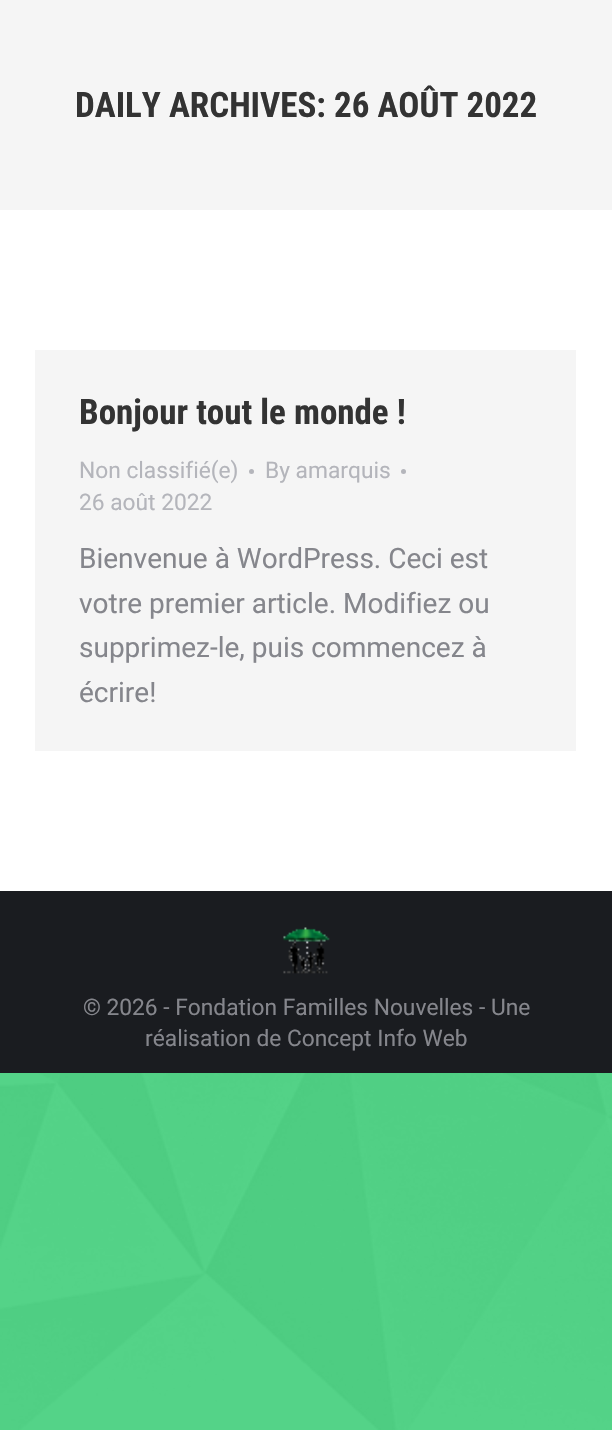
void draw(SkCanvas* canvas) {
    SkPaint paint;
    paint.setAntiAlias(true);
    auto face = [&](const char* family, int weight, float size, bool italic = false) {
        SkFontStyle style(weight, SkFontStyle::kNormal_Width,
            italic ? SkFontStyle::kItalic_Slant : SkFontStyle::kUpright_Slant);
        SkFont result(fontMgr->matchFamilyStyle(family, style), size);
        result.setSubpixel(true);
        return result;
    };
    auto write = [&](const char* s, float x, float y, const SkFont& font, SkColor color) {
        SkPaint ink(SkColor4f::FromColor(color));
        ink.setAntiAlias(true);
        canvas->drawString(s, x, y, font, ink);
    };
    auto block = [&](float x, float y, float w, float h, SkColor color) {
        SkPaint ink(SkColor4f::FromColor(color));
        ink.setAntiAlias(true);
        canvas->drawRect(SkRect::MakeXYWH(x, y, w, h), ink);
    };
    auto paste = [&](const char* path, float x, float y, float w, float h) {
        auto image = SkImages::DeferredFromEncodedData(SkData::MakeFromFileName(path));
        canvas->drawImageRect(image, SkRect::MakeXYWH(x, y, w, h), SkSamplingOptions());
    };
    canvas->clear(SkColorSetRGB(59, 205, 119));
    paste("pic1.png", 0, 1073, 612, 357);
    block(0, 210, 612, 681, SK_ColorWHITE);
    block(0, 0, 612, 210, SkColorSetRGB(245, 245, 245));
    auto kFont1 = face("Roboto Condensed", 700, 35);
    write("DAILY ARCHIVES: 26 AOÛT 2022", 75, 117, kFont1, SkColorSetRGB(51, 51, 51));
    block(35, 350, 541, 401, SkColorSetRGB(245, 245, 245));
    write("Bonjour tout le monde !", 79, 424, kFont1, SkColorSetRGB(51, 51, 51));
    auto kFont2 = face("Roboto", 400, 22.75f);
    write("Non classifié(e)", 79, 478, kFont2, SkColorSetRGB(180, 181, 187));
    paint.setColor(SkColorSetRGB(180, 181, 187));
    canvas->drawCircle(251.5f, 471.5f, 2.5f, paint);
    write("By amarquis", 265, 478, kFont2, SkColorSetRGB(180, 181, 187));
    canvas->drawCircle(403.5f, 471.5f, 2.5f, paint);
    write("26 août 2022", 79, 510, kFont2, SkColorSetRGB(180, 181, 187));
    auto kFont3 = face("Roboto", 400, 28);
    write("Bienvenue à WordPress. Ceci est", 79, 568, kFont3, SkColorSetRGB(133, 134, 140));
    write("votre premier article. Modifiez ou", 79, 613, kFont3, SkColorSetRGB(133, 134, 140));
    write("supprimez-le, puis commencez à", 79, 657, kFont3, SkColorSetRGB(133, 134, 140));
    write("écrire!", 79, 702, kFont3, SkColorSetRGB(133, 134, 140));
    block(0, 891, 612, 182, SkColorSetRGB(26, 28, 32));
    paste("pic2.png", 283, 927, 47, 47);
    write("© 2026 - Fondation Familles Nouvelles - Une", 83, 1015, kFont2, SkColorSetRGB(133, 134, 140));
    write("réalisation de Concept Info Web", 145, 1046, kFont2, SkColorSetRGB(133, 134, 140));
}
